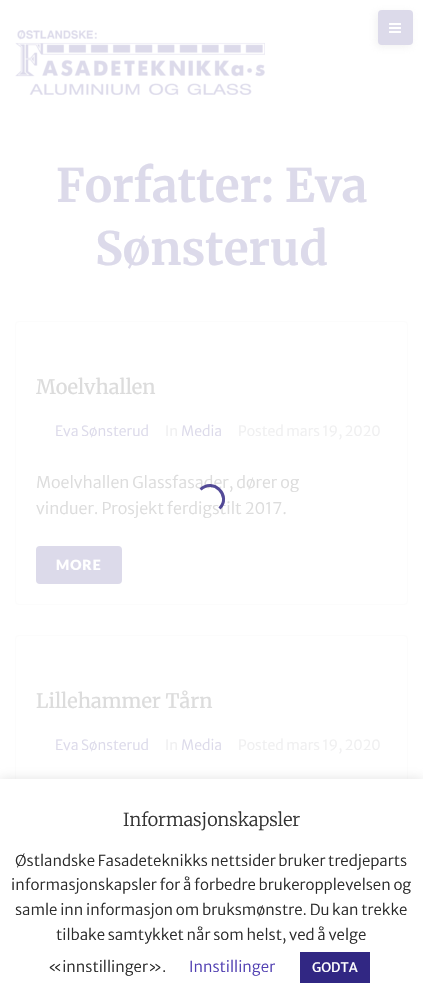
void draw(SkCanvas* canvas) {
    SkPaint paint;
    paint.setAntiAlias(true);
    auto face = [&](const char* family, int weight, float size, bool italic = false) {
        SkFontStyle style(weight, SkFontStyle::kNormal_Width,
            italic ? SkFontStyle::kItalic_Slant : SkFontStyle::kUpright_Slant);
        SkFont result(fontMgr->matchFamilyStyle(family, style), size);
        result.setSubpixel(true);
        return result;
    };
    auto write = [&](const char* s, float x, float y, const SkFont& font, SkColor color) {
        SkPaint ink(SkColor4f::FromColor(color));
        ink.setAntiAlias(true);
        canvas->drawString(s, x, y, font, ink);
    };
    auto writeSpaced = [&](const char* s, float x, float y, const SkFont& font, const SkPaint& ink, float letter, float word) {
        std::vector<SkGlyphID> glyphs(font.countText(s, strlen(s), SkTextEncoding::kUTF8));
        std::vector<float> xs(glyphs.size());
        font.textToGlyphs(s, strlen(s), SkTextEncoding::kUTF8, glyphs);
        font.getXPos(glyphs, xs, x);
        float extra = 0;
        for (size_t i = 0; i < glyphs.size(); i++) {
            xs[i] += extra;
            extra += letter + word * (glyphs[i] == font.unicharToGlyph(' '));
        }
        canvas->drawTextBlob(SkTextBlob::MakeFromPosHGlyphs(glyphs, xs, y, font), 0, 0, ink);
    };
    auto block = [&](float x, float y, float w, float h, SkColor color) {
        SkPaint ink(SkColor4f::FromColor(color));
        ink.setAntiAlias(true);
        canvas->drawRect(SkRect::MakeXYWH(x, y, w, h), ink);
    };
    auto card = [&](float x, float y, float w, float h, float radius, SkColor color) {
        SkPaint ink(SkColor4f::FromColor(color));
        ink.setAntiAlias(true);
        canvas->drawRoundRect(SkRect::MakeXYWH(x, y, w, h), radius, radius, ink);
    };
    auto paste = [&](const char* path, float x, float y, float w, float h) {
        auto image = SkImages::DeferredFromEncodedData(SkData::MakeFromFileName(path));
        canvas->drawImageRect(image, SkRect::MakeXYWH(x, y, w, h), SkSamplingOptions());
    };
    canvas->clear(SK_ColorWHITE);
    paste("pic1.png", 15, 30, 250, 65);
    paint.setColor(SkColorSetARGB(77, 212, 212, 212));
    paint.setMaskFilter(SkMaskFilter::MakeBlur(kNormal_SkBlurStyle, 3.5f));
    canvas->drawRoundRect(SkRect::MakeXYWH(376, 12, 35, 35), 4, 4, paint);
    paint.setMaskFilter(nullptr);
    card(378, 10, 35, 35, 4, SkColorSetRGB(220, 218, 234));
    paste("pic2.png", 389, 23, 12, 10);
    auto kFont1 = face("Merriweather", 700, 46);
    write("Forfatter: Eva", 56, 202, kFont1, SkColorSetRGB(220, 218, 234));
    write("Sønsterud", 95, 265, kFont1, SkColorSetRGB(220, 218, 234));
    paint.setStyle(SkPaint::kStroke_Style);
    paint.setStrokeWidth(1);
    paint.setColor(SkColorSetRGB(252, 252, 252));
    canvas->drawRoundRect(SkRect::MakeXYWH(15.5f, 321.5f, 392, 283), 3.5f, 3.5f, paint);
    auto kFont2 = face("Merriweather", 400, 20);
    write("Moelvhallen", 36, 394, kFont2, SkColorSetRGB(220, 220, 220));
    auto kFont3 = face("Merriweather Sans", 300, 14);
    write("Eva Sønsterud", 55, 436, kFont3, SkColorSetRGB(220, 218, 234));
    write("In", 165, 436, kFont3, SkColorSetRGB(239, 239, 240));
    write("Media", 181, 436, kFont3, SkColorSetRGB(220, 218, 234));
    write("Posted mars 19, 2020", 238, 436, kFont3, SkColorSetRGB(239, 239, 240));
    auto kFont4 = face("Merriweather Sans", 300, 16);
    write("Moelvhallen Glassfasader, dører og", 36, 488, kFont4, SkColorSetRGB(220, 220, 220));
    write("vinduer. Prosjekt ferdigstilt 2017.", 36, 514, kFont4, SkColorSetRGB(220, 220, 220));
    card(36, 546, 86, 38, 4, SkColorSetRGB(220, 218, 234));
    auto kFont5 = face("Lato", 900, 14);
    paint.setStyle(SkPaint::kFill_Style);
    paint.setColor(SK_ColorWHITE);
    writeSpaced("MORE", 56, 570, kFont5, paint, 1, 0);
    paint.setStyle(SkPaint::kStroke_Style);
    paint.setColor(SkColorSetRGB(252, 252, 252));
    canvas->drawRoundRect(SkRect::MakeXYWH(15.5f, 635.5f, 392, 282), 3.5f, 3.5f, paint);
    write("Lillehammer Tårn", 36, 708, kFont2, SkColorSetRGB(220, 220, 220));
    write("Eva Sønsterud", 55, 750, kFont3, SkColorSetRGB(220, 218, 234));
    write("In", 165, 750, kFont3, SkColorSetRGB(239, 239, 240));
    write("Media", 181, 750, kFont3, SkColorSetRGB(220, 218, 234));
    write("Posted mars 19, 2020", 238, 750, kFont3, SkColorSetRGB(239, 239, 240));
    paint.setStrokeWidth(3);
    paint.setColor(SkColorSetARGB(212, 49, 39, 131));
    canvas->drawPath(SkPathBuilder().moveTo(200.5f, 489.5f).cubicTo(213, 477, 232, 496, 219.5f, 508.5f).detach(), paint);
    paint.setStyle(SkPaint::kFill_Style);
    paint.setColor(SkColorSetARGB(77, 172, 171, 171));
    paint.setMaskFilter(SkMaskFilter::MakeBlur(kNormal_SkBlurStyle, 5));
    canvas->drawRect(SkRect::MakeXYWH(0, 778, 423, 221), paint);
    paint.setMaskFilter(nullptr);
    block(0, 779, 423, 221, SK_ColorWHITE);
    auto kFont6 = face("Merriweather", 300, 18);
    write("Informasjonskapsler", 123, 826, kFont6, SkColorSetRGB(51, 51, 51));
    auto kFont7 = face("Merriweather Sans", 300, 15);
    write("Østlandske Fasadeteknikks nettsider bruker tredjeparts", 15, 866, kFont7, SkColorSetRGB(43, 43, 43));
    write("informasjonskapsler for å forbedre brukeropplevelsen og", 11, 890, kFont7, SkColorSetRGB(43, 43, 43));
    write("samle inn informasjon om bruksmønstre. Du kan trekke", 15, 915, kFont7, SkColorSetRGB(43, 43, 43));
    write("tilbake samtykket når som helst, ved å velge", 56, 940, kFont7, SkColorSetRGB(43, 43, 43));
    write("«innstillinger».", 48, 972, kFont7, SkColorSetRGB(43, 43, 43));
    write("Innstillinger", 189, 972, kFont7, SkColorSetRGB(81, 64, 178));
    block(300, 952, 70, 31, SkColorSetRGB(49, 39, 131));
    auto kFont8 = face("Merriweather Sans", 400, 13);
    write("GODTA", 312, 972, kFont8, SK_ColorWHITE);
}
